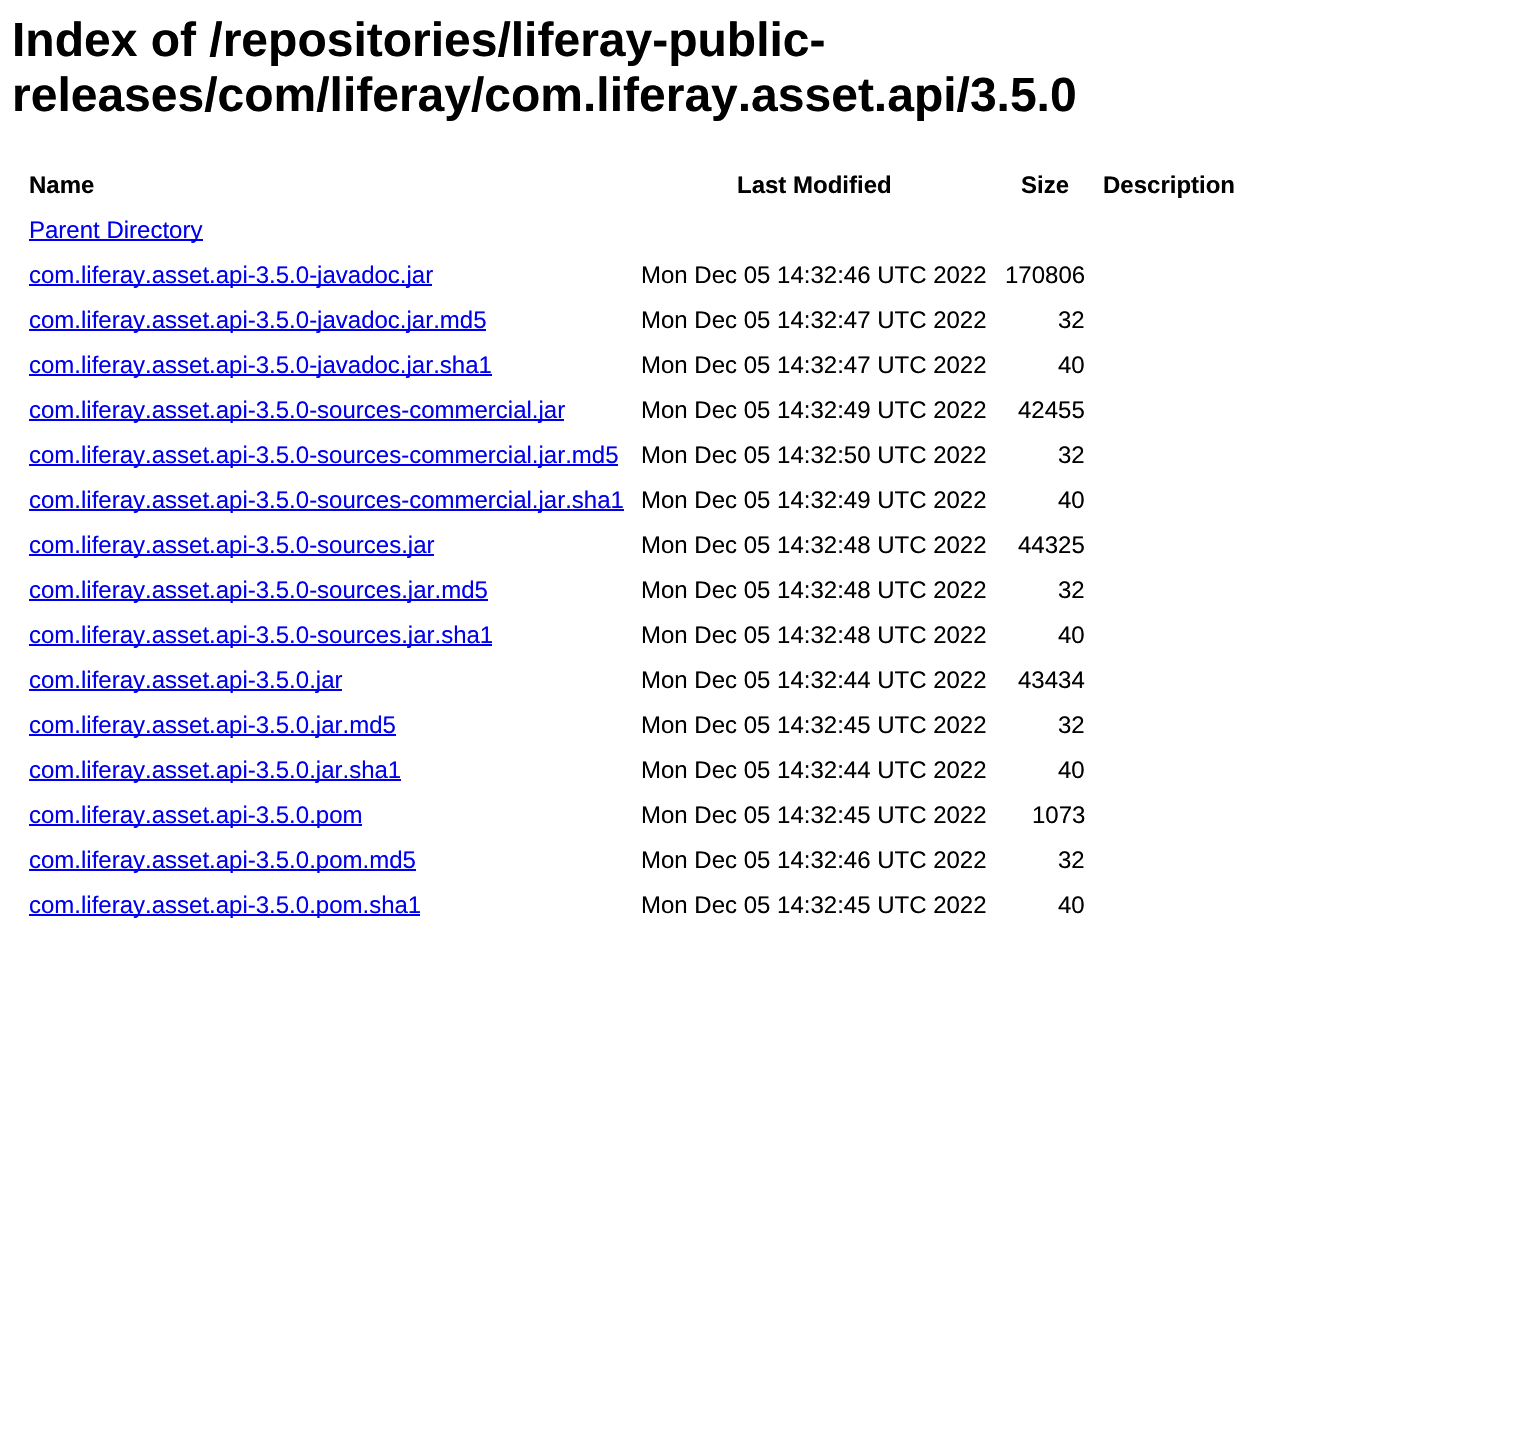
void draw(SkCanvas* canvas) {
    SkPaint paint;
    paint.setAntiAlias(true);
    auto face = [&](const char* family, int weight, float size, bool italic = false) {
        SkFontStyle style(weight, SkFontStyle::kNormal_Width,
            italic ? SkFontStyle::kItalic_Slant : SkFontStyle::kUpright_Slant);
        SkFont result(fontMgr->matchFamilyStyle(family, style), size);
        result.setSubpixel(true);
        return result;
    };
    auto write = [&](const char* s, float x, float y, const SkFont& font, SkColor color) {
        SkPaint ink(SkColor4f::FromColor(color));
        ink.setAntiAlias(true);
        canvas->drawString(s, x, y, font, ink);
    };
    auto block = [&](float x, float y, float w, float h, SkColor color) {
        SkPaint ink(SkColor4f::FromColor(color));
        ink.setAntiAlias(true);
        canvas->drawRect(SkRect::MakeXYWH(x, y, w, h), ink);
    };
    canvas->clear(SK_ColorWHITE);
    auto kFont1 = face("Liberation Sans", 700, 48);
    write("Index of /repositories/liferay-public-", 12, 56, kFont1, SK_ColorBLACK);
    write("releases/com/liferay/com.liferay.asset.api/3.5.0", 12, 111, kFont1, SK_ColorBLACK);
    auto kFont2 = face("Liberation Sans", 700, 24);
    write("Name", 29, 193, kFont2, SK_ColorBLACK);
    write("Last Modified", 737, 193, kFont2, SK_ColorBLACK);
    write("Size", 1021, 193, kFont2, SK_ColorBLACK);
    write("Description", 1103, 193, kFont2, SK_ColorBLACK);
    block(29, 239, 174, 2, SkColorSetRGB(0, 0, 238));
    auto kFont3 = face("Liberation Sans", 400, 24);
    write("Parent Directory", 29, 238, kFont3, SkColorSetRGB(0, 0, 238));
    block(29, 284, 403, 2, SkColorSetRGB(0, 0, 238));
    write("com.liferay.asset.api-3.5.0-javadoc.jar", 29, 283, kFont3, SkColorSetRGB(0, 0, 238));
    write("Mon Dec 05 14:32:46 UTC 2022", 641, 283, kFont3, SK_ColorBLACK);
    write("170806", 1005, 283, kFont3, SK_ColorBLACK);
    block(29, 329, 457, 2, SkColorSetRGB(0, 0, 238));
    write("com.liferay.asset.api-3.5.0-javadoc.jar.md5", 29, 328, kFont3, SkColorSetRGB(0, 0, 238));
    write("Mon Dec 05 14:32:47 UTC 2022", 641, 328, kFont3, SK_ColorBLACK);
    write("32", 1058, 328, kFont3, SK_ColorBLACK);
    block(29, 374, 463, 2, SkColorSetRGB(0, 0, 238));
    write("com.liferay.asset.api-3.5.0-javadoc.jar.sha1", 29, 373, kFont3, SkColorSetRGB(0, 0, 238));
    write("Mon Dec 05 14:32:47 UTC 2022", 641, 373, kFont3, SK_ColorBLACK);
    write("40", 1058, 373, kFont3, SK_ColorBLACK);
    block(29, 419, 535, 2, SkColorSetRGB(0, 0, 238));
    write("com.liferay.asset.api-3.5.0-sources-commercial.jar", 29, 418, kFont3, SkColorSetRGB(0, 0, 238));
    write("Mon Dec 05 14:32:49 UTC 2022", 641, 418, kFont3, SK_ColorBLACK);
    write("42455", 1018, 418, kFont3, SK_ColorBLACK);
    block(29, 464, 589, 2, SkColorSetRGB(0, 0, 238));
    write("com.liferay.asset.api-3.5.0-sources-commercial.jar.md5", 29, 463, kFont3, SkColorSetRGB(0, 0, 238));
    write("Mon Dec 05 14:32:50 UTC 2022", 641, 463, kFont3, SK_ColorBLACK);
    write("32", 1058, 463, kFont3, SK_ColorBLACK);
    block(29, 509, 595, 2, SkColorSetRGB(0, 0, 238));
    write("com.liferay.asset.api-3.5.0-sources-commercial.jar.sha1", 29, 508, kFont3, SkColorSetRGB(0, 0, 238));
    write("Mon Dec 05 14:32:49 UTC 2022", 641, 508, kFont3, SK_ColorBLACK);
    write("40", 1058, 508, kFont3, SK_ColorBLACK);
    block(29, 554, 405, 2, SkColorSetRGB(0, 0, 238));
    write("com.liferay.asset.api-3.5.0-sources.jar", 29, 553, kFont3, SkColorSetRGB(0, 0, 238));
    write("Mon Dec 05 14:32:48 UTC 2022", 641, 553, kFont3, SK_ColorBLACK);
    write("44325", 1018, 553, kFont3, SK_ColorBLACK);
    block(29, 599, 459, 2, SkColorSetRGB(0, 0, 238));
    write("com.liferay.asset.api-3.5.0-sources.jar.md5", 29, 598, kFont3, SkColorSetRGB(0, 0, 238));
    write("Mon Dec 05 14:32:48 UTC 2022", 641, 598, kFont3, SK_ColorBLACK);
    write("32", 1058, 598, kFont3, SK_ColorBLACK);
    block(29, 644, 463, 2, SkColorSetRGB(0, 0, 238));
    write("com.liferay.asset.api-3.5.0-sources.jar.sha1", 29, 643, kFont3, SkColorSetRGB(0, 0, 238));
    write("Mon Dec 05 14:32:48 UTC 2022", 641, 643, kFont3, SK_ColorBLACK);
    write("40", 1058, 643, kFont3, SK_ColorBLACK);
    block(29, 689, 313, 2, SkColorSetRGB(0, 0, 238));
    write("com.liferay.asset.api-3.5.0.jar", 29, 688, kFont3, SkColorSetRGB(0, 0, 238));
    write("Mon Dec 05 14:32:44 UTC 2022", 641, 688, kFont3, SK_ColorBLACK);
    write("43434", 1018, 688, kFont3, SK_ColorBLACK);
    block(29, 734, 367, 2, SkColorSetRGB(0, 0, 238));
    write("com.liferay.asset.api-3.5.0.jar.md5", 29, 733, kFont3, SkColorSetRGB(0, 0, 238));
    write("Mon Dec 05 14:32:45 UTC 2022", 641, 733, kFont3, SK_ColorBLACK);
    write("32", 1058, 733, kFont3, SK_ColorBLACK);
    block(29, 779, 372, 2, SkColorSetRGB(0, 0, 238));
    write("com.liferay.asset.api-3.5.0.jar.sha1", 29, 778, kFont3, SkColorSetRGB(0, 0, 238));
    write("Mon Dec 05 14:32:44 UTC 2022", 641, 778, kFont3, SK_ColorBLACK);
    write("40", 1058, 778, kFont3, SK_ColorBLACK);
    block(29, 824, 333, 2, SkColorSetRGB(0, 0, 238));
    write("com.liferay.asset.api-3.5.0.pom", 29, 823, kFont3, SkColorSetRGB(0, 0, 238));
    write("Mon Dec 05 14:32:45 UTC 2022", 641, 823, kFont3, SK_ColorBLACK);
    write("1073", 1032, 823, kFont3, SK_ColorBLACK);
    block(29, 869, 387, 2, SkColorSetRGB(0, 0, 238));
    write("com.liferay.asset.api-3.5.0.pom.md5", 29, 868, kFont3, SkColorSetRGB(0, 0, 238));
    write("Mon Dec 05 14:32:46 UTC 2022", 641, 868, kFont3, SK_ColorBLACK);
    write("32", 1058, 868, kFont3, SK_ColorBLACK);
    block(29, 914, 391, 2, SkColorSetRGB(0, 0, 238));
    write("com.liferay.asset.api-3.5.0.pom.sha1", 29, 913, kFont3, SkColorSetRGB(0, 0, 238));
    write("Mon Dec 05 14:32:45 UTC 2022", 641, 913, kFont3, SK_ColorBLACK);
    write("40", 1058, 913, kFont3, SK_ColorBLACK);
}
